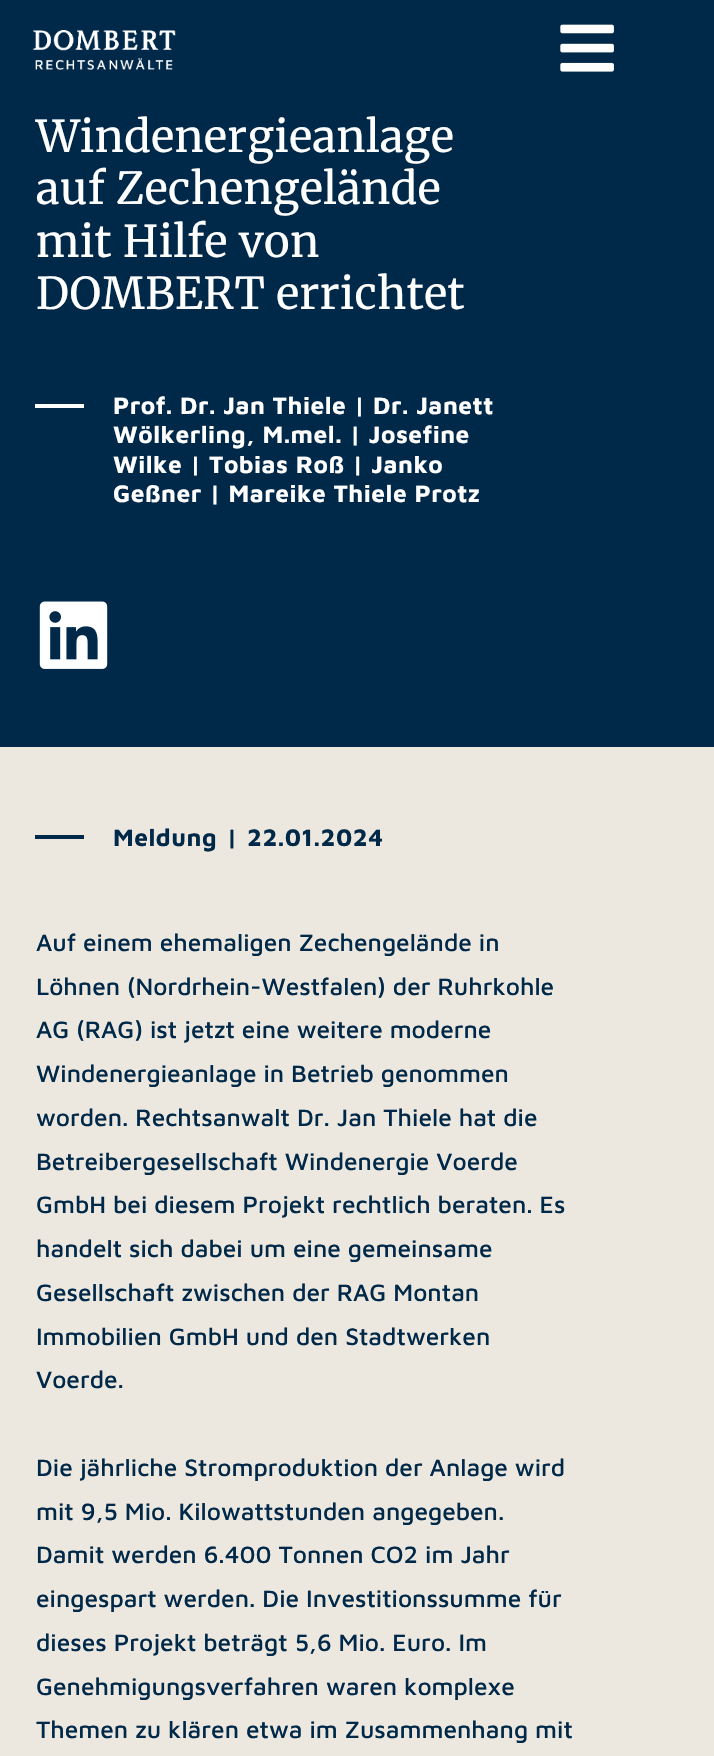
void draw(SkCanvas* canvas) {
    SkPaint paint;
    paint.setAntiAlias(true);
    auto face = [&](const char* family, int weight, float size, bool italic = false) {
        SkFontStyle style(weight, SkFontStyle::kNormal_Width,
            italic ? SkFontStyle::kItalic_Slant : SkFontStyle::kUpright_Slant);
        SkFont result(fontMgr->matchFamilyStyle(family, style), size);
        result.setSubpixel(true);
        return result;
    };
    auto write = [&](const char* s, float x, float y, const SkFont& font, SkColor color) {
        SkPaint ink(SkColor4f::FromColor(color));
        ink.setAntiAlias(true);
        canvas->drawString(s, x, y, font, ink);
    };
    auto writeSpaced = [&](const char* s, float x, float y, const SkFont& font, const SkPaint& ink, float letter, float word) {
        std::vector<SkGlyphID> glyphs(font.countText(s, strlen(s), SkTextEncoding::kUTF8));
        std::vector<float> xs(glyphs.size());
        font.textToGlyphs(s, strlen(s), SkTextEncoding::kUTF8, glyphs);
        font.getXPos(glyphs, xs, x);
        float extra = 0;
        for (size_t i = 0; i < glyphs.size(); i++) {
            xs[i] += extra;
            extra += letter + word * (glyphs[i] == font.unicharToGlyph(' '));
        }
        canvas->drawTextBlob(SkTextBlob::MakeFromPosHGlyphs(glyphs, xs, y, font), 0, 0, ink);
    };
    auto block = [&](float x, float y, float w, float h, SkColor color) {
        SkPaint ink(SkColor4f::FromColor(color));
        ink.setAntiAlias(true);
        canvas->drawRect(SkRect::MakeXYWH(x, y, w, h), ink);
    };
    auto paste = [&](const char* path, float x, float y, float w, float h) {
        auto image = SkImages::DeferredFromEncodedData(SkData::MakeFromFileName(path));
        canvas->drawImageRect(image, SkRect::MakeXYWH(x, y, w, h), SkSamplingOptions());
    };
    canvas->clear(SkColorSetRGB(237, 232, 223));
    block(0, 0, 714, 747, SkColorSetRGB(0, 40, 72));
    paste("pic1.png", 33, 30, 143, 40);
    paste("pic2.png", 560, 24, 54, 48);
    auto kFont1 = face("Merriweather", 400, 43.75f);
    paint.setColor(SK_ColorWHITE);
    writeSpaced("Windenergieanlage", 36, 152, kFont1, paint, 0.5f, 0);
    writeSpaced("auf Zechengelände", 36, 204, kFont1, paint, 0.5f, 0);
    writeSpaced("mit Hilfe von", 36, 257, kFont1, paint, 0.5f, 0);
    writeSpaced("DOMBERT errichtet", 36, 309, kFont1, paint, 0.5f, 0);
    block(35, 404, 49, 4, SK_ColorWHITE);
    auto kFont2 = face("Maven Pro", 700, 24.5f);
    writeSpaced("Prof. Dr. Jan Thiele | Dr. Janett", 113, 414, kFont2, paint, 0.5f, 0);
    writeSpaced("Wölkerling, M.mel. | Josefine", 113, 443, kFont2, paint, 0.5f, 0);
    writeSpaced("Wilke | Tobias Roß | Janko", 113, 473, kFont2, paint, 0.5f, 0);
    writeSpaced("Geßner | Mareike Thiele Protz", 113, 502, kFont2, paint, 0.5f, 0);
    paste("pic3.png", 39, 601, 69, 68);
    block(35, 835, 49, 4, SkColorSetRGB(0, 40, 72));
    paint.setColor(SkColorSetRGB(0, 40, 72));
    writeSpaced("Meldung", 113, 846, kFont2, paint, 0.5f, 0);
    writeSpaced("|", 226, 846, kFont2, paint, 0.5f, 0);
    writeSpaced("22.01.2024", 247, 846, kFont2, paint, 0.5f, 0);
    auto kFont3 = face("Maven Pro", 500, 24.5f);
    write("Auf einem ehemaligen Zechengelände in", 36, 951, kFont3, SkColorSetRGB(0, 40, 72));
    write("Löhnen (Nordrhein-Westfalen) der Ruhrkohle", 36, 995, kFont3, SkColorSetRGB(0, 40, 72));
    write("AG (RAG) ist jetzt eine weitere moderne", 36, 1038, kFont3, SkColorSetRGB(0, 40, 72));
    write("Windenergieanlage in Betrieb genommen", 36, 1082, kFont3, SkColorSetRGB(0, 40, 72));
    write("worden. Rechtsanwalt Dr. Jan Thiele hat die", 36, 1126, kFont3, SkColorSetRGB(0, 40, 72));
    write("Betreibergesellschaft Windenergie Voerde", 36, 1170, kFont3, SkColorSetRGB(0, 40, 72));
    write("GmbH bei diesem Projekt rechtlich beraten. Es", 36, 1213, kFont3, SkColorSetRGB(0, 40, 72));
    write("handelt sich dabei um eine gemeinsame", 36, 1257, kFont3, SkColorSetRGB(0, 40, 72));
    write("Gesellschaft zwischen der RAG Montan", 36, 1301, kFont3, SkColorSetRGB(0, 40, 72));
    write("Immobilien GmbH und den Stadtwerken", 36, 1345, kFont3, SkColorSetRGB(0, 40, 72));
    write("Voerde.", 36, 1388, kFont3, SkColorSetRGB(0, 40, 72));
    write("Die jährliche Stromproduktion der Anlage wird", 36, 1476, kFont3, SkColorSetRGB(0, 40, 72));
    write("mit 9,5 Mio. Kilowattstunden angegeben.", 36, 1520, kFont3, SkColorSetRGB(0, 40, 72));
    write("Damit werden 6.400 Tonnen CO2 im Jahr", 36, 1563, kFont3, SkColorSetRGB(0, 40, 72));
    write("eingespart werden. Die Investitionssumme für", 36, 1607, kFont3, SkColorSetRGB(0, 40, 72));
    write("dieses Projekt beträgt 5,6 Mio. Euro. Im", 36, 1651, kFont3, SkColorSetRGB(0, 40, 72));
    write("Genehmigungsverfahren waren komplexe", 36, 1695, kFont3, SkColorSetRGB(0, 40, 72));
    write("Themen zu klären etwa im Zusammenhang mit", 36, 1738, kFont3, SkColorSetRGB(0, 40, 72));
}
